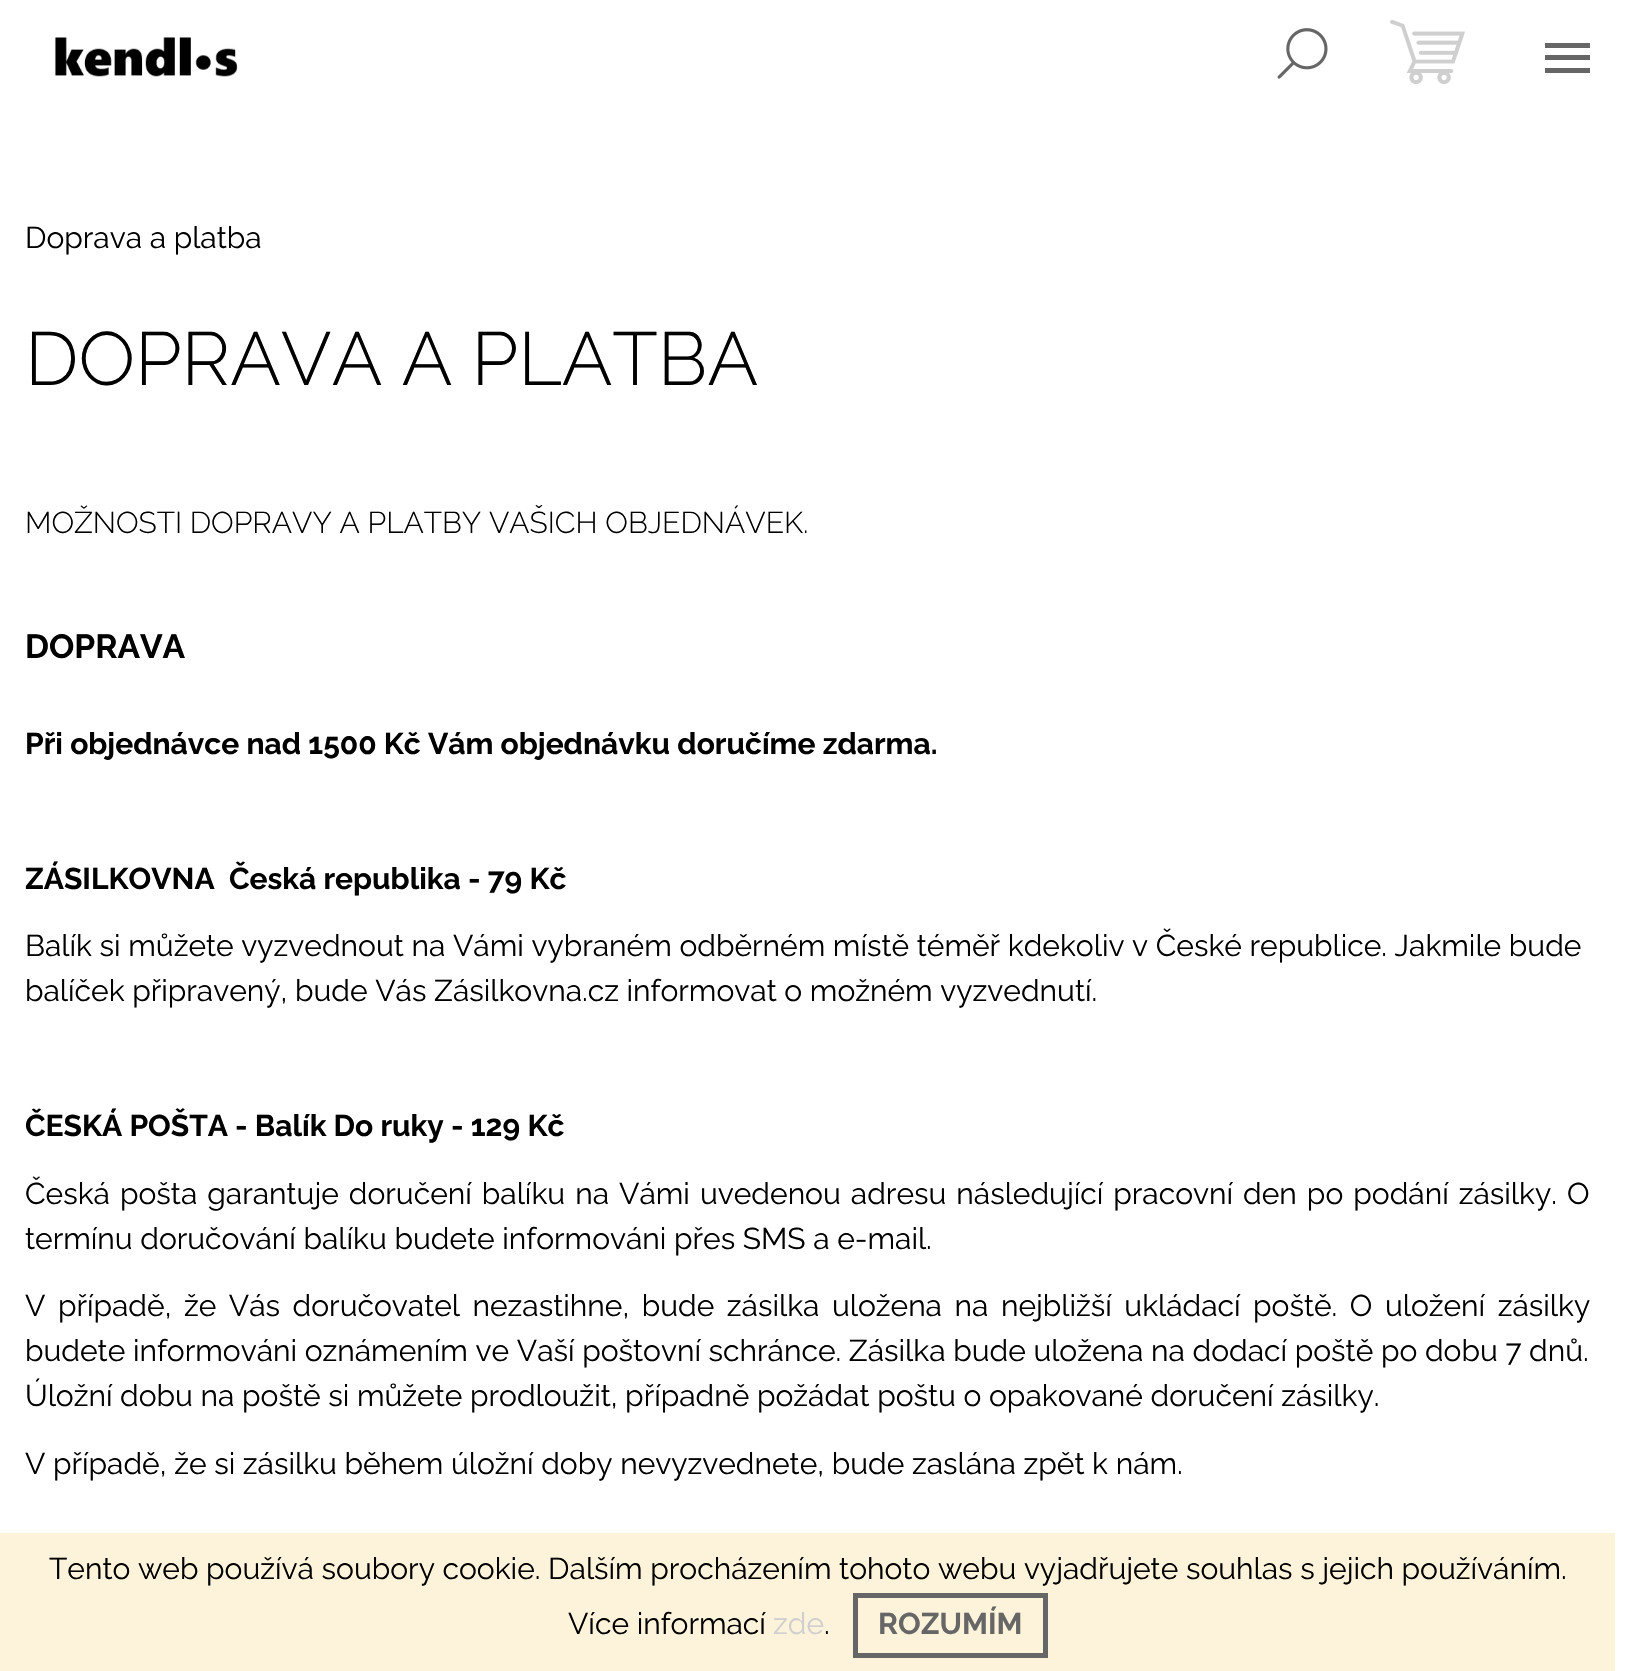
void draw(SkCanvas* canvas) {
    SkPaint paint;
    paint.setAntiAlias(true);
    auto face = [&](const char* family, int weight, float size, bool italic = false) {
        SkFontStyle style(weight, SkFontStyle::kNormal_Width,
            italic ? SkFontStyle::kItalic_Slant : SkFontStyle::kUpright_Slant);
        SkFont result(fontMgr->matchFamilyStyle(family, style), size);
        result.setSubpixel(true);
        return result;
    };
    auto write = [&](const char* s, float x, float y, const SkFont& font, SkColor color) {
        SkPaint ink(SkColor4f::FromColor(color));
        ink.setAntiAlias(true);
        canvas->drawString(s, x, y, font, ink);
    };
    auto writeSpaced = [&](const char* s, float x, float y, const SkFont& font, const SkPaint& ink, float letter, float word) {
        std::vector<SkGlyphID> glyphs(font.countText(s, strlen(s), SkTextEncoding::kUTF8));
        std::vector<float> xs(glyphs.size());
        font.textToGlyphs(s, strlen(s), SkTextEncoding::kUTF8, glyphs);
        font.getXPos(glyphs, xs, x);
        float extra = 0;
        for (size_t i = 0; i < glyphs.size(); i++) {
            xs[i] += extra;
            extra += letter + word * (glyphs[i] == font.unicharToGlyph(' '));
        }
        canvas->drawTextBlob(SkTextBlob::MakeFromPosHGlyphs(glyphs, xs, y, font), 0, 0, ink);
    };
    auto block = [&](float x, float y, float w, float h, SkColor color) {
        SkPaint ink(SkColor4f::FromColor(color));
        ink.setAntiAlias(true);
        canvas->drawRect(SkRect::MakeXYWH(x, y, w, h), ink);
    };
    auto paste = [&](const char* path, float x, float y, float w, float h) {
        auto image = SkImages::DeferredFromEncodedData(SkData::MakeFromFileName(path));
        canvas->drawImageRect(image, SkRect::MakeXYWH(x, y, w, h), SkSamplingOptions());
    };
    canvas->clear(SK_ColorWHITE);
    paste("pic1.png", 55, 37, 183, 40);
    paste("pic2.png", 1277, 28, 51, 51);
    paste("pic3.png", 1390, 20, 75, 64);
    paint.setColor(SkColorSetRGB(102, 102, 102));
    canvas->drawPath(SkPathBuilder().moveTo(1545, 73).lineTo(1590, 73).lineTo(1590, 68).lineTo(1545, 68).close().moveTo(1545, 60).lineTo(1590, 60).lineTo(1590, 55).lineTo(1545, 55).close().moveTo(1545, 43).lineTo(1545, 48).lineTo(1590, 48).lineTo(1590, 43).close().detach(), paint);
    auto kFont1 = face("Raleway", 400, 30);
    write("Doprava a platba", 25, 248, kFont1, SK_ColorBLACK);
    auto kFont2 = face("Raleway", 300, 75);
    write("DOPRAVA A PLATBA", 25, 385, kFont2, SK_ColorBLACK);
    auto kFont3 = face("Raleway", 300, 30);
    write("MOŽNOSTI DOPRAVY A PLATBY VAŠICH OBJEDNÁVEK.", 25, 533, kFont3, SK_ColorBLACK);
    auto kFont4 = face("Raleway", 700, 33.5f);
    write("DOPRAVA", 25, 658, kFont4, SK_ColorBLACK);
    auto kFont5 = face("Raleway", 700, 30);
    write("Při objednávce nad 1500 Kč Vám objednávku doručíme zdarma.", 25, 754, kFont5, SK_ColorBLACK);
    write("ZÁSILKOVNA  Česká republika - 79 Kč", 25, 889, kFont5, SK_ColorBLACK);
    write("Balík si můžete vyzvednout na Vámi vybraném odběrném místě téměř kdekoliv v České republice. Jakmile bude", 25, 956, kFont1, SK_ColorBLACK);
    write("balíček připravený, bude Vás Zásilkovna.cz informovat o možném vyzvednutí.", 25, 1001, kFont1, SK_ColorBLACK);
    write("ČESKÁ POŠTA - Balík Do ruky - 129 Kč", 25, 1136, kFont5, SK_ColorBLACK);
    paint.setColor(SK_ColorBLACK);
    writeSpaced("Česká pošta garantuje doručení balíku na Vámi uvedenou adresu následující pracovní den po podání zásilky. O", 25, 1204, kFont1, paint, 0, 2.4f);
    write("termínu doručování balíku budete informováni přes SMS a e-mail.", 25, 1249, kFont1, SK_ColorBLACK);
    writeSpaced("V případě, že Vás doručovatel nezastihne, bude zásilka uložena na nejbližší ukládací poště. O uložení zásilky", 25, 1316, kFont1, paint, 0, 4.9f);
    write("budete informováni oznámením ve Vaší poštovní schránce. Zásilka bude uložena na dodací poště po dobu 7 dnů.", 25, 1361, kFont1, SK_ColorBLACK);
    write("Úložní dobu na poště si můžete prodloužit, případně požádat poštu o opakované doručení zásilky.", 25, 1406, kFont1, SK_ColorBLACK);
    write("V případě, že si zásilku během úložní doby nevyzvednete, bude zaslána zpět k nám.", 25, 1474, kFont1, SK_ColorBLACK);
    block(0, 1533, 1615, 138, SkColorSetRGB(253, 243, 218));
    write("Tento web používá soubory cookie. Dalším procházením tohoto webu vyjadřujete souhlas s jejich používáním.", 49, 1579, kFont1, SK_ColorBLACK);
    write("Více informací", 568, 1634, kFont1, SK_ColorBLACK);
    write("zde", 773, 1634, kFont1, SkColorSetRGB(207, 207, 207));
    write(".", 824, 1634, kFont1, SK_ColorBLACK);
    paint.setStyle(SkPaint::kStroke_Style);
    paint.setStrokeWidth(5);
    paint.setColor(SkColorSetRGB(102, 102, 102));
    canvas->drawRect(SkRect::MakeXYWH(855.5f, 1595.5f, 190, 60), paint);
    write("ROZUMÍM", 878, 1634, kFont5, SkColorSetRGB(102, 102, 102));
}
